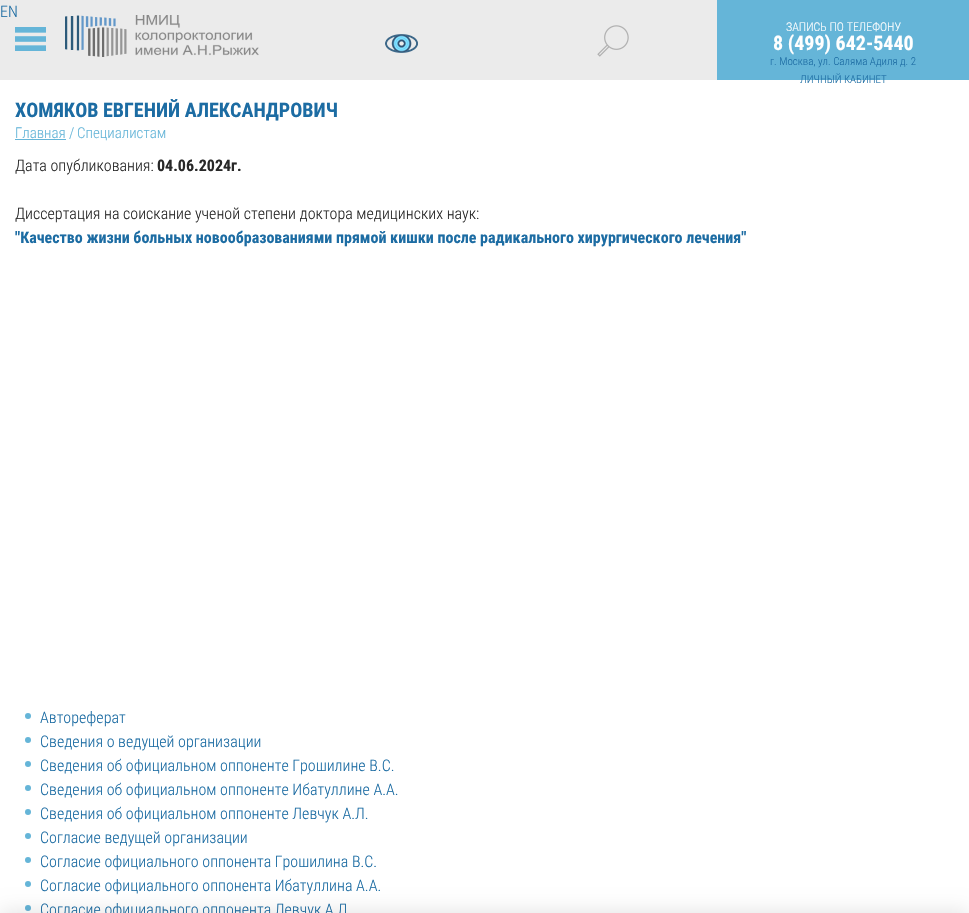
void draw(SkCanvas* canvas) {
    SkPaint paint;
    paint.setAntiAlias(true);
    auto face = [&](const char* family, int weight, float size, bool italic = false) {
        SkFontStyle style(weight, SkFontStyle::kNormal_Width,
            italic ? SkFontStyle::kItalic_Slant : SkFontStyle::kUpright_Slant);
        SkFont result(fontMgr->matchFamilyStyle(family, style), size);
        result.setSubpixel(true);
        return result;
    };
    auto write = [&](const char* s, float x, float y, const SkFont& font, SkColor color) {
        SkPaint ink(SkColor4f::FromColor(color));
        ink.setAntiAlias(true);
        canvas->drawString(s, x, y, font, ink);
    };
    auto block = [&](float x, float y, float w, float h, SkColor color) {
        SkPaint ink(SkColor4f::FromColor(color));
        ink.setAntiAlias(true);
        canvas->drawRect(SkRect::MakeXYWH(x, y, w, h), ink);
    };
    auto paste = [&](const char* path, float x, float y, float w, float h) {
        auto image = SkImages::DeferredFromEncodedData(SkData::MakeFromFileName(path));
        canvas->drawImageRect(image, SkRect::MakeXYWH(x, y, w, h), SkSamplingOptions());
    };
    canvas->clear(SK_ColorWHITE);
    block(0, 0, 717, 80, SkColorSetRGB(235, 235, 235));
    auto kFont1 = face("Roboto Condensed", 300, 16);
    write("EN", 0, 17, kFont1, SkColorSetRGB(28, 108, 163));
    paste("pic1.png", 15, 27, 31, 24);
    paste("pic2.png", 65, 15, 194, 42);
    paste("pic3.png", 385, 34, 33, 19);
    paste("pic4.png", 597, 25, 32, 32);
    block(717, 0, 252, 80, SkColorSetRGB(101, 181, 216));
    auto kFont2 = face("Roboto Condensed", 300, 12);
    write("ЗАПИСЬ ПО ТЕЛЕФОНУ", 786, 31, kFont2, SK_ColorWHITE);
    auto kFont3 = face("Roboto Condensed", 700, 20);
    write("8 (499) 642-5440", 773, 50, kFont3, SK_ColorWHITE);
    auto kFont4 = face("Roboto Condensed", 300, 11);
    write("г. Москва, ул. Саляма Адиля д. 2", 770, 65, kFont4, SkColorSetRGB(28, 108, 163));
    write("ЛИЧНЫЙ КАБИНЕТ", 800, 83, kFont4, SkColorSetRGB(28, 108, 163));
    write("ХОМЯКОВ ЕВГЕНИЙ АЛЕКСАНДРОВИЧ", 15, 117, kFont3, SkColorSetRGB(28, 108, 163));
    auto kFont5 = face("Roboto Condensed", 300, 15);
    write("Главная", 15, 138, kFont5, SkColorSetRGB(101, 181, 216));
    block(15, 139, 51, 1, SkColorSetRGB(101, 181, 216));
    write("/", 69, 138, kFont5, SkColorSetRGB(101, 181, 216));
    write("Специалистам", 77, 138, kFont5, SkColorSetRGB(101, 181, 216));
    write("Дата опубликования:", 15, 171, kFont1, SkColorSetRGB(40, 40, 40));
    auto kFont6 = face("Roboto Condensed", 700, 16);
    write("04.06.2024г.", 157, 171, kFont6, SkColorSetRGB(40, 40, 40));
    write("Диссертация на соискание ученой степени доктора медицинских наук:", 15, 219, kFont1, SkColorSetRGB(40, 40, 40));
    write("\"Качество жизни больных новообразованиями прямой кишки после радикального хирургического лечения\"", 15, 243, kFont6, SkColorSetRGB(28, 108, 163));
    paint.setColor(SkColorSetRGB(101, 181, 216));
    canvas->drawCircle(28, 716, 3, paint);
    write("Автореферат", 40, 723, kFont1, SkColorSetRGB(28, 108, 163));
    canvas->drawCircle(28, 740, 3, paint);
    write("Сведения о ведущей организации", 40, 747, kFont1, SkColorSetRGB(28, 108, 163));
    canvas->drawCircle(28, 764, 3, paint);
    write("Сведения об официальном оппоненте Грошилине В.С.", 40, 771, kFont1, SkColorSetRGB(28, 108, 163));
    canvas->drawCircle(28, 788, 3, paint);
    write("Сведения об официальном оппоненте Ибатуллине А.А.", 40, 795, kFont1, SkColorSetRGB(28, 108, 163));
    canvas->drawCircle(28, 812, 3, paint);
    write("Сведения об официальном оппоненте Левчук А.Л.", 40, 819, kFont1, SkColorSetRGB(28, 108, 163));
    canvas->drawCircle(28, 836, 3, paint);
    write("Согласие ведущей организации", 40, 843, kFont1, SkColorSetRGB(28, 108, 163));
    canvas->drawCircle(28, 860, 3, paint);
    write("Согласие официального оппонента Грошилина В.С.", 40, 867, kFont1, SkColorSetRGB(28, 108, 163));
    canvas->drawCircle(28, 884, 3, paint);
    write("Согласие официального оппонента Ибатуллина А.А.", 40, 891, kFont1, SkColorSetRGB(28, 108, 163));
    canvas->drawCircle(28, 908, 3, paint);
    write("Согласие официального оппонента Левчук А.Л", 40, 915, kFont1, SkColorSetRGB(28, 108, 163));
    paint.setColor(SkColorSetARGB(26, 0, 0, 0));
    paint.setMaskFilter(SkMaskFilter::MakeBlur(kNormal_SkBlurStyle, 10));
    canvas->drawRect(SkRect::MakeXYWH(0, 911, 969, 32), paint);
    paint.setMaskFilter(nullptr);
}
